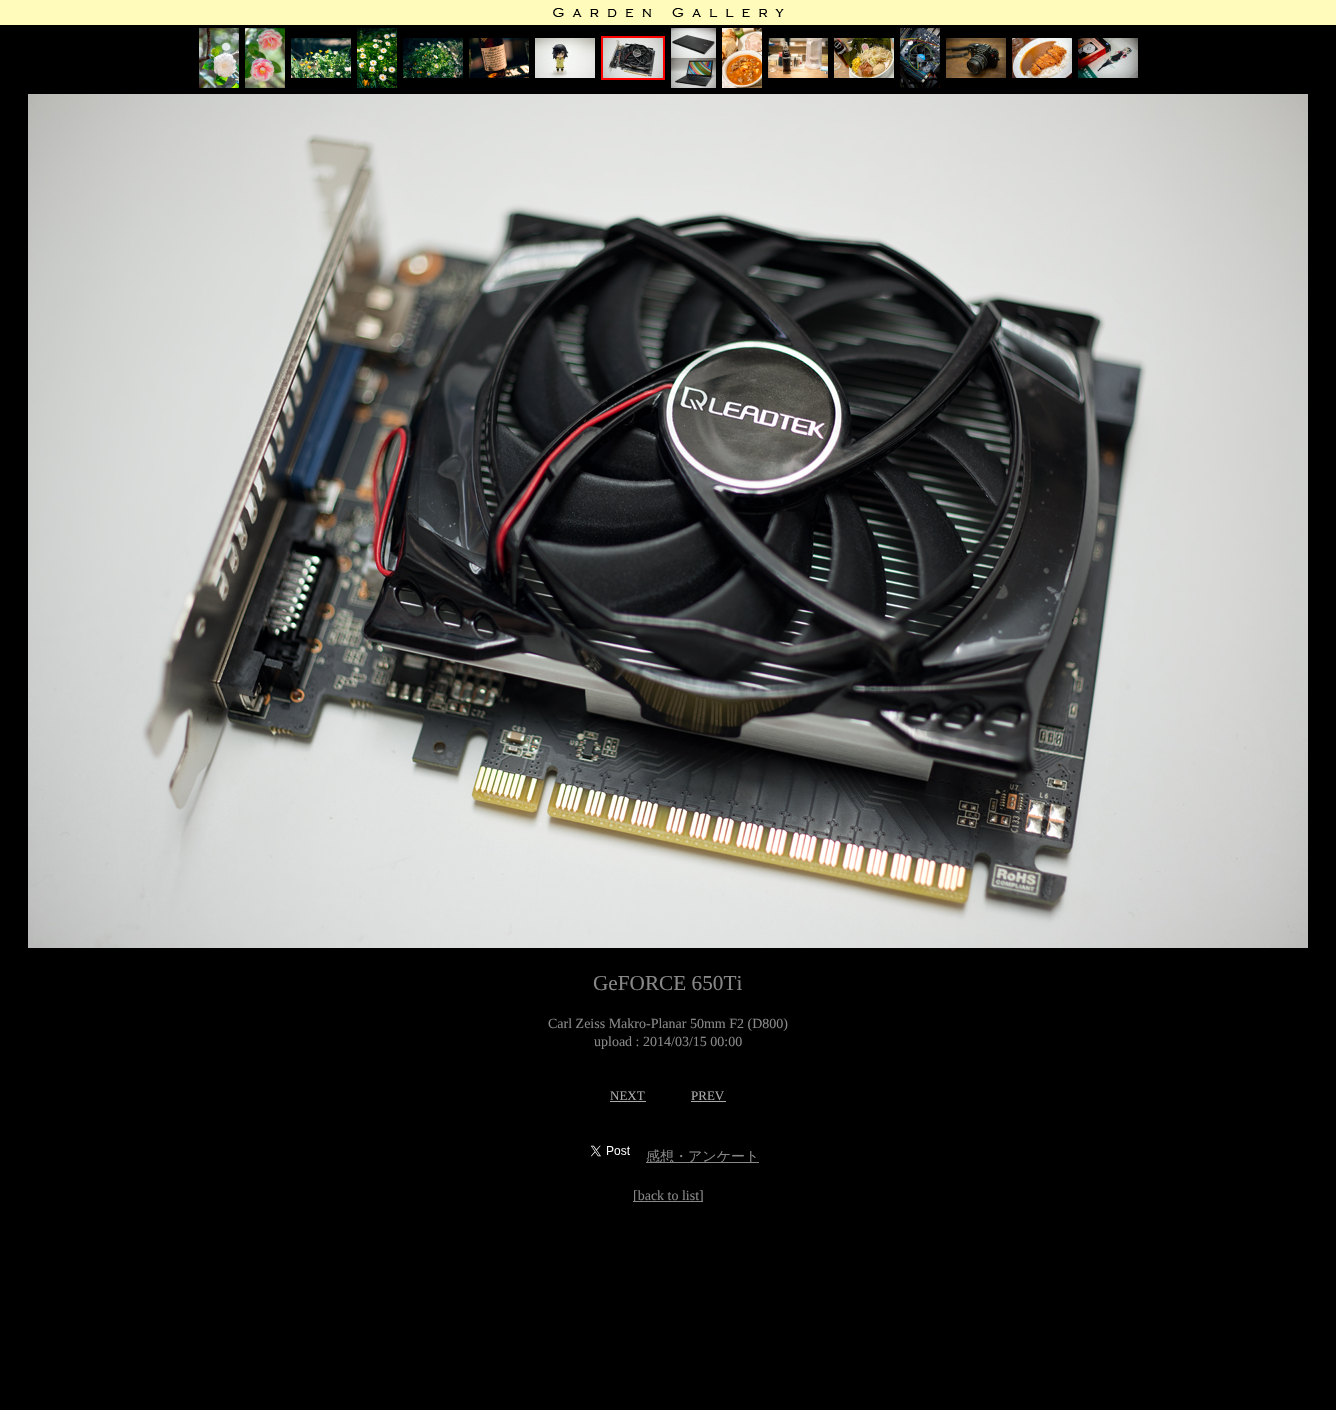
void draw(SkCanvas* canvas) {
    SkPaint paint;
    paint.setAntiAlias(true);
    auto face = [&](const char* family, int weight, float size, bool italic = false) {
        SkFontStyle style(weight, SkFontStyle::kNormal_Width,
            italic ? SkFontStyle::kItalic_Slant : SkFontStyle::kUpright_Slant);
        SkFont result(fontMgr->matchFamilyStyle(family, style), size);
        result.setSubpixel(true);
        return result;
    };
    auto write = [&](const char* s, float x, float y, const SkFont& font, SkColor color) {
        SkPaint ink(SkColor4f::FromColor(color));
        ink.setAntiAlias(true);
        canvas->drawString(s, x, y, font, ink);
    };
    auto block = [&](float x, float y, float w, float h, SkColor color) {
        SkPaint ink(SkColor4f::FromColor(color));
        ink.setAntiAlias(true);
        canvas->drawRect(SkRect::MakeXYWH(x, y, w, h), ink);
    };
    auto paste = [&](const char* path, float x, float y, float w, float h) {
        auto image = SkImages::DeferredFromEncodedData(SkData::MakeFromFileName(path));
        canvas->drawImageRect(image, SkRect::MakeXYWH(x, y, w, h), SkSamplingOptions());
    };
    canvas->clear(SK_ColorBLACK);
    block(0, 0, 1336, 25, SkColorSetRGB(255, 251, 187));
    paste("pic1.png", 553, 8, 231, 9);
    paste("pic2.png", 199, 28, 40, 60);
    paste("pic3.png", 245, 28, 40, 60);
    paste("pic4.png", 291, 38, 60, 40);
    paste("pic5.png", 357, 28, 40, 60);
    paste("pic6.png", 403, 38, 60, 40);
    paste("pic7.png", 469, 38, 60, 40);
    paste("pic8.png", 535, 38, 60, 40);
    paint.setStyle(SkPaint::kStroke_Style);
    paint.setStrokeWidth(2);
    paint.setColor(SkColorSetRGB(255, 0, 0));
    canvas->drawRect(SkRect::MakeXYWH(602, 37, 62, 42), paint);
    paste("pic9.png", 603, 38, 60, 40);
    paste("pic10.png", 671, 28, 45, 60);
    paste("pic11.png", 722, 28, 40, 60);
    paste("pic12.png", 768, 38, 60, 40);
    paste("pic13.png", 834, 38, 60, 40);
    paste("pic14.png", 900, 28, 40, 60);
    paste("pic15.png", 946, 38, 60, 40);
    paste("pic16.png", 1012, 38, 60, 40);
    paste("pic17.png", 1078, 38, 60, 40);
    paste("pic18.png", 28, 94, 1280, 854);
    auto kFont1 = face("Liberation Serif", 400, 21.25f);
    write("GeFORCE 650Ti", 593, 990, kFont1, SkColorSetRGB(136, 136, 136));
    auto kFont2 = face("Liberation Serif", 400, 14);
    write("Carl Zeiss Makro-Planar 50mm F2 (D800)", 548, 1028, kFont2, SkColorSetRGB(136, 136, 136));
    write("upload : 2014/03/15 00:00", 594, 1046, kFont2, SkColorSetRGB(136, 136, 136));
    auto kFont3 = face("Liberation Serif", 400, 13);
    write("NEXT", 610, 1100, kFont3, SkColorSetRGB(170, 170, 170));
    block(610, 1101, 36, 1, SkColorSetRGB(170, 170, 170));
    write("PREV", 691, 1100, kFont3, SkColorSetRGB(170, 170, 170));
    block(691, 1101, 35, 1, SkColorSetRGB(170, 170, 170));
    paste("pic19.png", 590, 1145, 40, 12);
    block(646, 1162, 113, 1, SkColorSetRGB(136, 136, 136));
    auto kFont4 = face("WenQuanYi Zen Hei", 500, 14);
    write("感想・アンケート", 646, 1161, kFont4, SkColorSetRGB(136, 136, 136));
    block(633, 1201, 70, 1, SkColorSetRGB(136, 136, 136));
    write("[back to list]", 633, 1200, kFont2, SkColorSetRGB(136, 136, 136));
}
